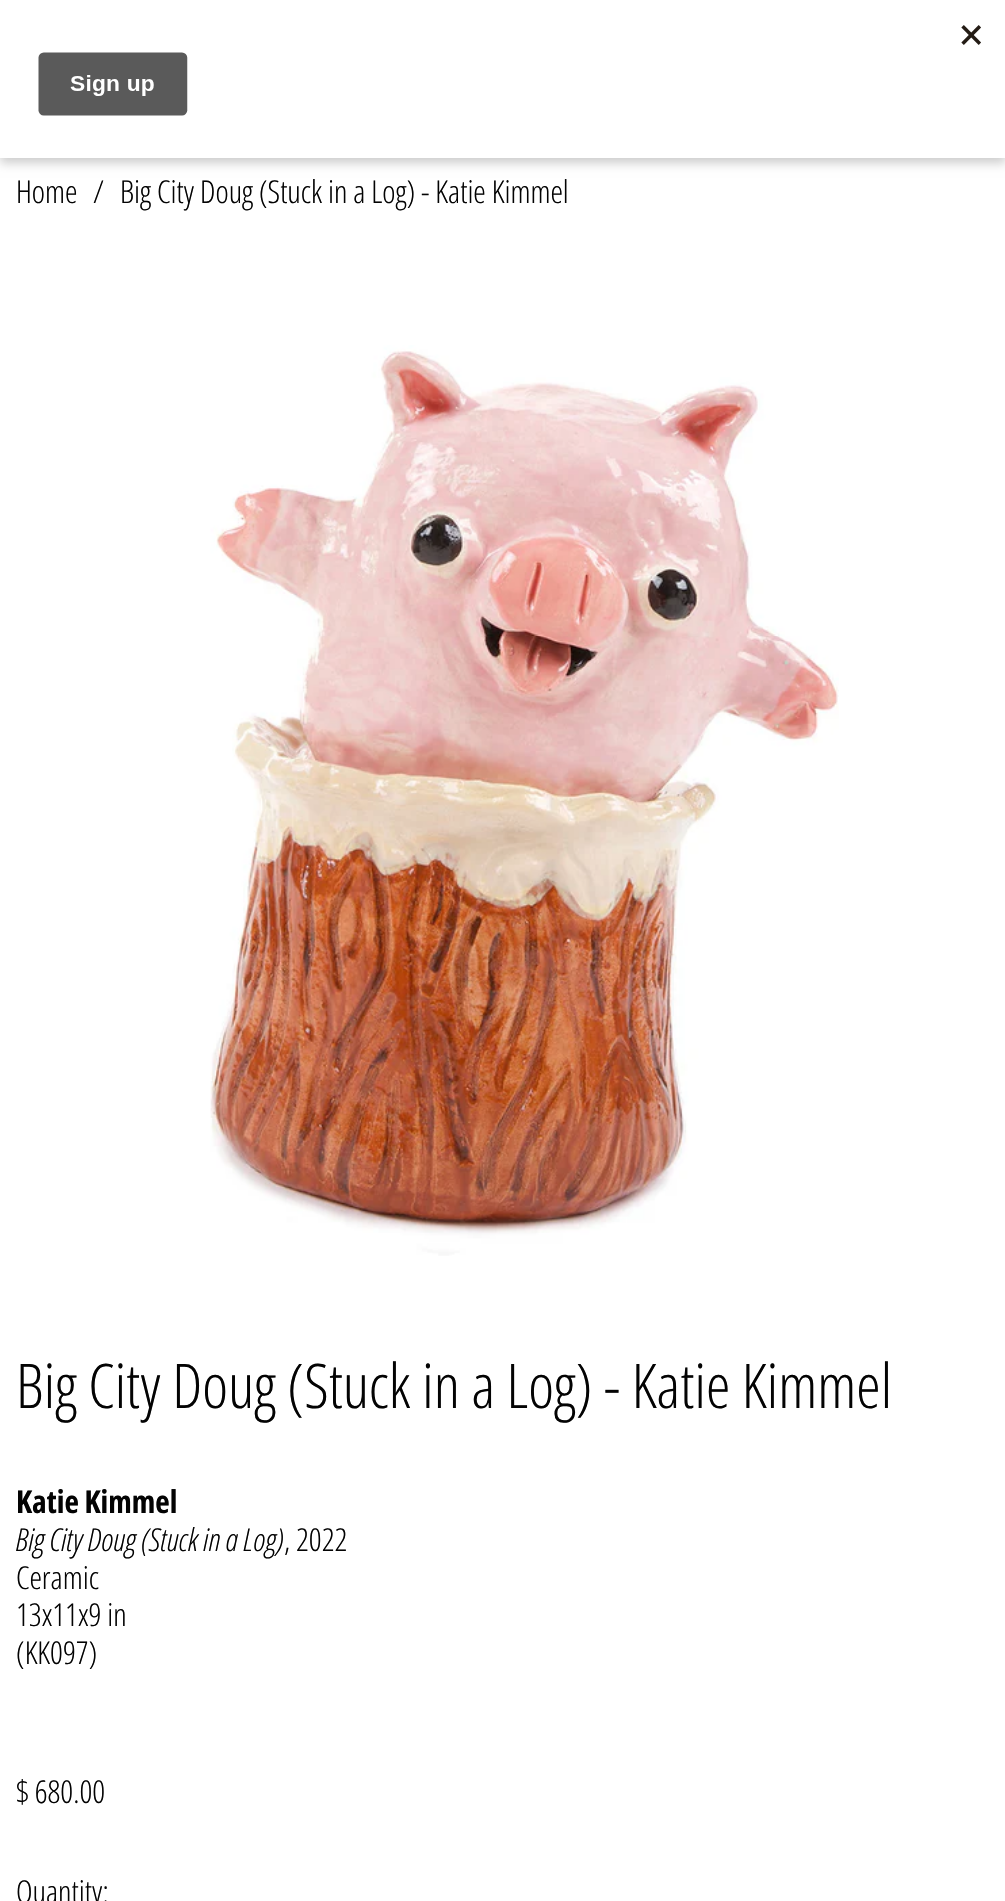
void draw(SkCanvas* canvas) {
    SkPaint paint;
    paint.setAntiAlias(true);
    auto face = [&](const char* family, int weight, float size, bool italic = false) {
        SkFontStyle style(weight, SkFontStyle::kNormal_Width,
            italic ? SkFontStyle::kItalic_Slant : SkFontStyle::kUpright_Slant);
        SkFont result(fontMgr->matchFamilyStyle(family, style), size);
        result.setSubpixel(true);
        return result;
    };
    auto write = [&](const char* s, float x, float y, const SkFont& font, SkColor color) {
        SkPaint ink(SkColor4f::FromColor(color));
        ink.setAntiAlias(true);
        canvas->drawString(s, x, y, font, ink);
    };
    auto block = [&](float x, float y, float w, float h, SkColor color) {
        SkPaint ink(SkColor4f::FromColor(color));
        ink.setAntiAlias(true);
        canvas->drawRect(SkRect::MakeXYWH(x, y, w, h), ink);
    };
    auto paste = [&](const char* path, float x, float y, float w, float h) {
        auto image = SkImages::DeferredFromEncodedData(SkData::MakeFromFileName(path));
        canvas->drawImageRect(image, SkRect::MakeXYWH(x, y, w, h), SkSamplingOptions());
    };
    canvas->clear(SK_ColorWHITE);
    paint.setColor(SkColorSetARGB(51, 0, 0, 0));
    paint.setMaskFilter(SkMaskFilter::MakeBlur(kNormal_SkBlurStyle, 5));
    canvas->drawRect(SkRect::MakeXYWH(0, 5, 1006, 158), paint);
    paint.setMaskFilter(nullptr);
    block(0, 0, 1005, 158, SK_ColorWHITE);
    paste("pic1.png", 38, 25, 943, 91);
    auto kFont1 = face("Open Sans Condensed", 300, 31.5f);
    write("Home", 16, 203, kFont1, SkColorSetRGB(3, 3, 3));
    write("/", 93, 203, kFont1, SkColorSetRGB(3, 3, 3));
    write("Big City Doug (Stuck in a Log) - Katie Kimmel", 120, 203, kFont1, SkColorSetRGB(3, 3, 3));
    paste("pic2.png", 210, 345, 629, 911);
    auto kFont2 = face("Open Sans Condensed", 300, 61.5f);
    write("Big City Doug (Stuck in a Log) - Katie Kimmel", 16, 1408, kFont2, SkColorSetRGB(3, 3, 3));
    auto kFont3 = face("Open Sans Condensed", 700, 31.5f);
    write("Katie Kimmel", 16, 1513, kFont3, SkColorSetRGB(3, 3, 3));
    auto kFont4 = face("Open Sans Condensed", 300, 31.5f, true);
    write("Big City Doug (Stuck in a Log)", 16, 1551, kFont4, SkColorSetRGB(3, 3, 3));
    write(", 2022", 284, 1551, kFont1, SkColorSetRGB(3, 3, 3));
    write("Ceramic", 16, 1589, kFont1, SkColorSetRGB(3, 3, 3));
    write("13x11x9 in", 16, 1626, kFont1, SkColorSetRGB(3, 3, 3));
    write("(KK097)", 16, 1664, kFont1, SkColorSetRGB(3, 3, 3));
    write("$ 680.00", 16, 1803, kFont1, SkColorSetRGB(3, 3, 3));
    write("Quantity:", 16, 1903, kFont1, SkColorSetRGB(3, 3, 3));
}
